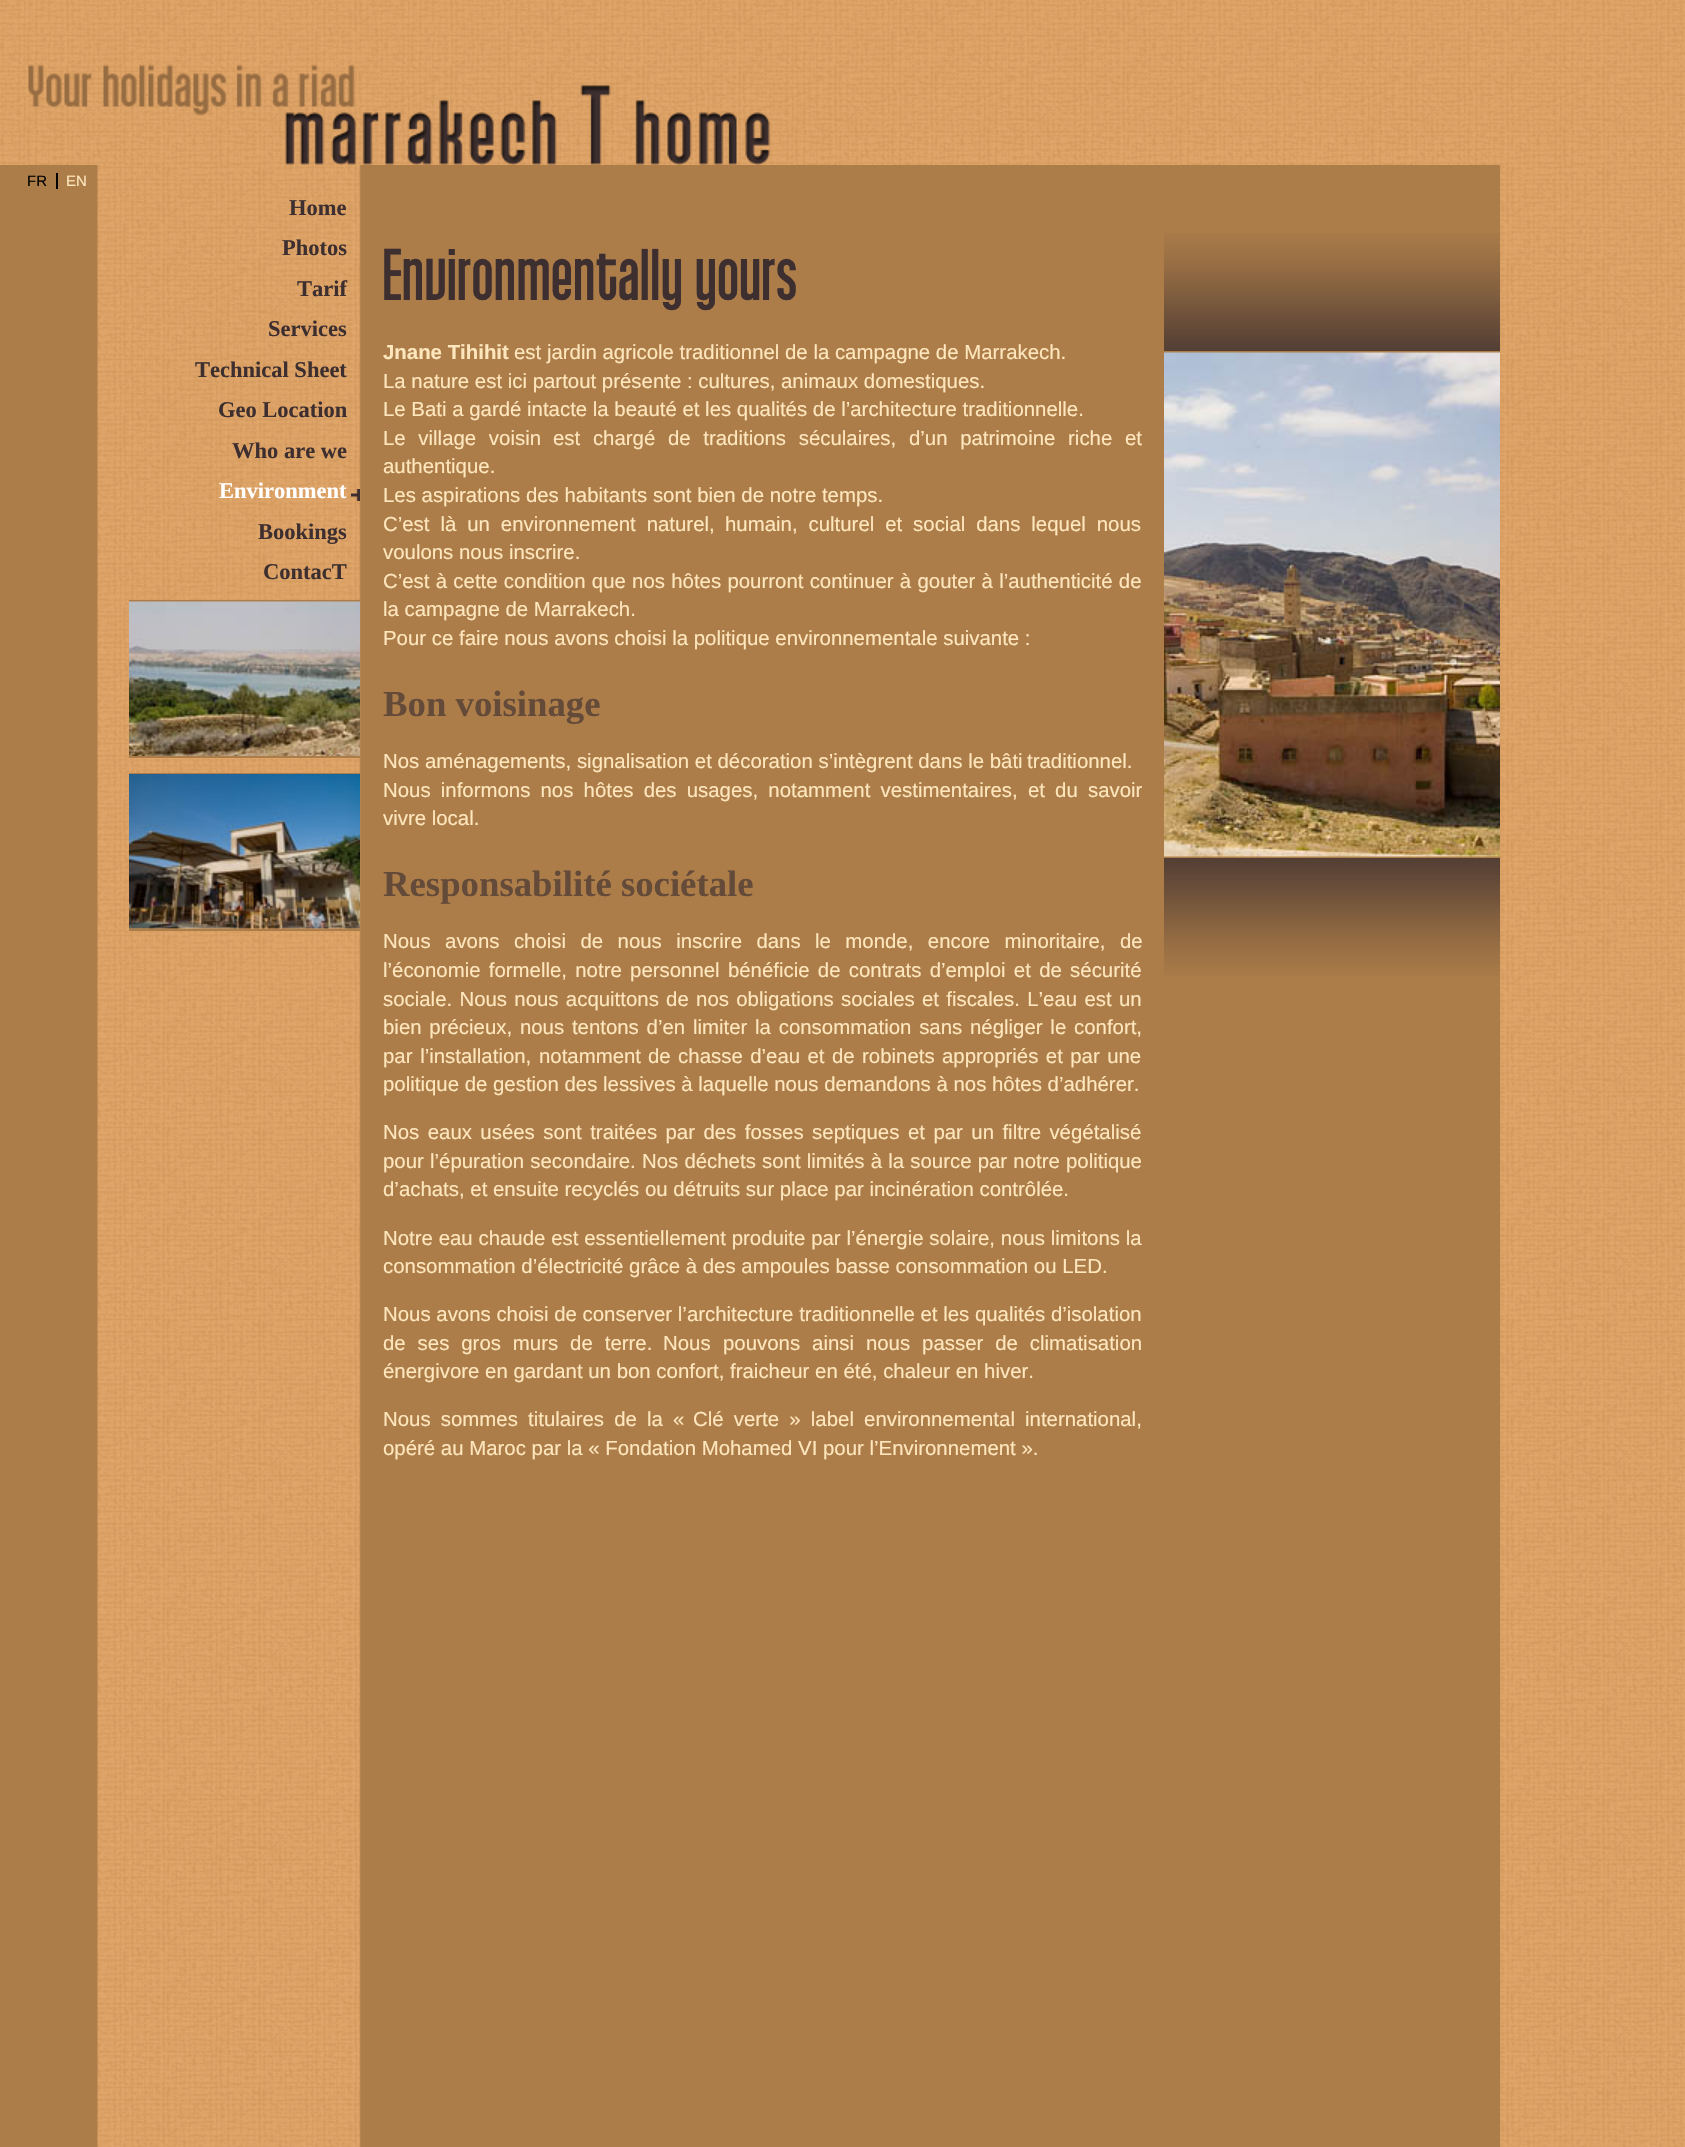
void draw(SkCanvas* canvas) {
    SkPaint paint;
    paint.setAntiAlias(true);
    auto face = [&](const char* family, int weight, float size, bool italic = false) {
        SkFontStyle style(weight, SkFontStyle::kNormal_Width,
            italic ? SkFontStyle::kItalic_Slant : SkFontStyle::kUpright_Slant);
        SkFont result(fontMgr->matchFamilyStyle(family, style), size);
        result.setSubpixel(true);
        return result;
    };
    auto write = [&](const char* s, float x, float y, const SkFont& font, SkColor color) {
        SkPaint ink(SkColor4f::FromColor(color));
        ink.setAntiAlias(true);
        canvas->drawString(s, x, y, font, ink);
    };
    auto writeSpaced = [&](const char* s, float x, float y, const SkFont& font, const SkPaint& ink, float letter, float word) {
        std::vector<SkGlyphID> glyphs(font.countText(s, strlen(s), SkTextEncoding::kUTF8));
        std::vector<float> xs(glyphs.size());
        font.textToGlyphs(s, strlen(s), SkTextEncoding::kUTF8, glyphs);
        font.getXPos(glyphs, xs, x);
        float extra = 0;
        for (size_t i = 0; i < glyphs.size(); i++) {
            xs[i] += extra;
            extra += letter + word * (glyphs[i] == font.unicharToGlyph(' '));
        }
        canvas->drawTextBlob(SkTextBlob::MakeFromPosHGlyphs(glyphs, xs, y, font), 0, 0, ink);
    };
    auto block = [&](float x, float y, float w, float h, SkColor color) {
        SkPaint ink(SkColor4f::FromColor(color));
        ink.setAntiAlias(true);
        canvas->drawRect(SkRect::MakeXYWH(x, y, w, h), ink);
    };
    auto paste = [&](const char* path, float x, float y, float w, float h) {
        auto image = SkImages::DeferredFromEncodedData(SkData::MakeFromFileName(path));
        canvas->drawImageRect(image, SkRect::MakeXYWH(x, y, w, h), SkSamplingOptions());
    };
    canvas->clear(SK_ColorWHITE);
    paste("pic1.png", 0, 0, 1685, 2147);
    paste("pic2.png", 0, 165, 1500, 1982);
    paste("pic3.png", 28, 64, 742, 101);
    block(56, 173, 2, 16, SK_ColorBLACK);
    auto kFont1 = face("Liberation Sans", 400, 15);
    write("FR", 27, 186, kFont1, SK_ColorBLACK);
    write("EN", 66, 186, kFont1, SkColorSetRGB(254, 230, 189));
    auto kFont2 = face("Liberation Serif", 700, 22.5f);
    write("Home", 289, 215, kFont2, SkColorSetRGB(61, 47, 47));
    write("Photos", 282, 255, kFont2, SkColorSetRGB(61, 47, 47));
    write("Tarif", 297, 296, kFont2, SkColorSetRGB(61, 47, 47));
    write("Services", 268, 336, kFont2, SkColorSetRGB(61, 47, 47));
    write("Technical Sheet", 195, 377, kFont2, SkColorSetRGB(61, 47, 47));
    write("Geo Location", 218, 417, kFont2, SkColorSetRGB(61, 47, 47));
    write("Who are we", 232, 458, kFont2, SkColorSetRGB(61, 47, 47));
    paste("pic4.png", 351, 489, 9, 12);
    write("Environment", 219, 498, kFont2, SK_ColorWHITE);
    write("Bookings", 258, 539, kFont2, SkColorSetRGB(61, 47, 47));
    write("ContacT", 263, 579, kFont2, SkColorSetRGB(61, 47, 47));
    block(129, 600, 231, 2, SkColorSetRGB(173, 125, 73));
    block(129, 756, 231, 2, SkColorSetRGB(173, 125, 73));
    paste("pic5.png", 129, 601, 231, 155);
    block(129, 773, 231, 1, SkColorSetRGB(173, 125, 73));
    block(129, 929, 231, 2, SkColorSetRGB(173, 125, 73));
    paste("pic6.png", 129, 774, 231, 155);
    auto kFont3 = face("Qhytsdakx", 400, 71.5f);
    write("Environmentally yours", 383, 300, kFont3, SkColorSetRGB(61, 47, 47));
    auto kFont4 = face("Liberation Sans", 700, 20.4f);
    write("Jnane Tihihit", 383, 359, kFont4, SkColorSetRGB(254, 230, 189));
    auto kFont5 = face("Liberation Sans", 400, 20.4f);
    write("est jardin agricole traditionnel de la campagne de Marrakech.", 514, 359, kFont5, SkColorSetRGB(254, 230, 189));
    write("La nature est ici partout présente : cultures, animaux domestiques.", 383, 388, kFont5, SkColorSetRGB(254, 230, 189));
    write("Le Bati a gardé intacte la beauté et les qualités de l’architecture traditionnelle.", 383, 416, kFont5, SkColorSetRGB(254, 230, 189));
    paint.setColor(SkColorSetRGB(254, 230, 189));
    writeSpaced("Le village voisin", 383, 445, kFont5, paint, 0, 7);
    writeSpaced("est chargé de traditions séculaires, d’un patrimoine riche et", 553, 445, kFont5, paint, 0, 7);
    write("authentique.", 383, 473, kFont5, SkColorSetRGB(254, 230, 189));
    write("Les aspirations des habitants sont bien de notre temps.", 383, 502, kFont5, SkColorSetRGB(254, 230, 189));
    writeSpaced("C’est là un environnement naturel,", 383, 531, kFont5, paint, 0, 5.25f);
    writeSpaced("humain, culturel et social dans lequel nous", 725, 531, kFont5, paint, 0, 5.25f);
    write("voulons nous inscrire.", 383, 559, kFont5, SkColorSetRGB(254, 230, 189));
    writeSpaced("C’est à cette condition que nos hôtes pourront continuer à gouter à l’authenticité de", 383, 588, kFont5, paint, 0, 0.6f);
    write("la campagne de Marrakech.", 383, 616, kFont5, SkColorSetRGB(254, 230, 189));
    write("Pour ce faire nous avons choisi la politique environnementale suivante :", 383, 645, kFont5, SkColorSetRGB(254, 230, 189));
    auto kFont6 = face("Liberation Serif", 700, 36.75f);
    write("Bon voisinage", 383, 716, kFont6, SkColorSetRGB(100, 74, 56));
    write("Nos aménagements, signalisation et décoration s’intègrent dans le bâti", 383, 768, kFont5, SkColorSetRGB(254, 230, 189));
    write("traditionnel.", 1027, 768, kFont5, SkColorSetRGB(254, 230, 189));
    writeSpaced("Nous informons nos hôtes des usages, notamment vestimentaires, et du savoir", 383, 797, kFont5, paint, 0, 4.5f);
    write("vivre local.", 383, 825, kFont5, SkColorSetRGB(254, 230, 189));
    write("Responsabilité sociétale", 383, 896, kFont6, SkColorSetRGB(100, 74, 56));
    writeSpaced("Nous avons choisi de nous inscrire dans le monde, encore minoritaire, de", 383, 948, kFont5, paint, 0, 8.75f);
    writeSpaced("l’économie formelle, notre personnel bénéficie de contrats d’emploi et de sécurité", 383, 977, kFont5, paint, 0, 2.6f);
    writeSpaced("sociale. Nous nous acquittons de nos obligations sociales et fiscales. L’eau est un", 383, 1006, kFont5, paint, 0, 1.6f);
    writeSpaced("bien précieux, nous tentons d’en limiter la consommation sans négliger le confort,", 383, 1034, kFont5, paint, 0, 2.1f);
    writeSpaced("par l’installation, notamment", 383, 1063, kFont5, paint, 0, 2);
    writeSpaced("de chasse d’eau et de robinets appropriés et par une", 648, 1063, kFont5, paint, 0, 1.75f);
    write("politique de gestion des lessives à laquelle nous demandons à nos hôtes d’adhérer.", 383, 1091, kFont5, SkColorSetRGB(254, 230, 189));
    writeSpaced("Nos eaux usées sont traitées par des fosses septiques", 383, 1139, kFont5, paint, 0, 2.75f);
    writeSpaced("et par un filtre végétalisé", 908, 1139, kFont5, paint, 0, 2.75f);
    writeSpaced("pour l’épuration secondaire. Nos déchets sont limités à la source par notre politique", 383, 1168, kFont5, paint, 0, 0.5f);
    write("d’achats, et ensuite recyclés ou détruits sur place par incinération contrôlée.", 383, 1196, kFont5, SkColorSetRGB(254, 230, 189));
    writeSpaced("Notre eau chaude est essentiellement produite par l’énergie solaire, nous limitons la", 383, 1245, kFont5, paint, 0, 0.1f);
    write("consommation d’électricité grâce à des ampoules basse consommation ou LED.", 383, 1273, kFont5, SkColorSetRGB(254, 230, 189));
    write("Nous avons choisi de conserver l’architecture traditionnelle et les qualités d’isolation", 383, 1321, kFont5, SkColorSetRGB(254, 230, 189));
    writeSpaced("de ses gros murs de terre.", 383, 1350, kFont5, paint, 0, 6.25f);
    write("Nous", 663, 1350, kFont5, SkColorSetRGB(254, 230, 189));
    writeSpaced("pouvons ainsi nous passer de climatisation", 723, 1350, kFont5, paint, 0, 6.25f);
    write("énergivore en gardant un bon confort, fraicheur en été, chaleur en hiver.", 383, 1378, kFont5, SkColorSetRGB(254, 230, 189));
    writeSpaced("Nous sommes titulaires de la «", 383, 1426, kFont5, paint, 0, 4.5f);
    writeSpaced("Clé verte » label environnemental", 693, 1426, kFont5, paint, 0, 4.5f);
    write("international,", 1025, 1426, kFont5, SkColorSetRGB(254, 230, 189));
    write("opéré au Maroc par la « Fondation Mohamed VI pour l’Environnement ».", 383, 1455, kFont5, SkColorSetRGB(254, 230, 189));
    paste("pic7.png", 1164, 233, 336, 118);
    paste("pic8.png", 1164, 858, 336, 118);
    paste("pic9.png", 1164, 352, 336, 505);
}
